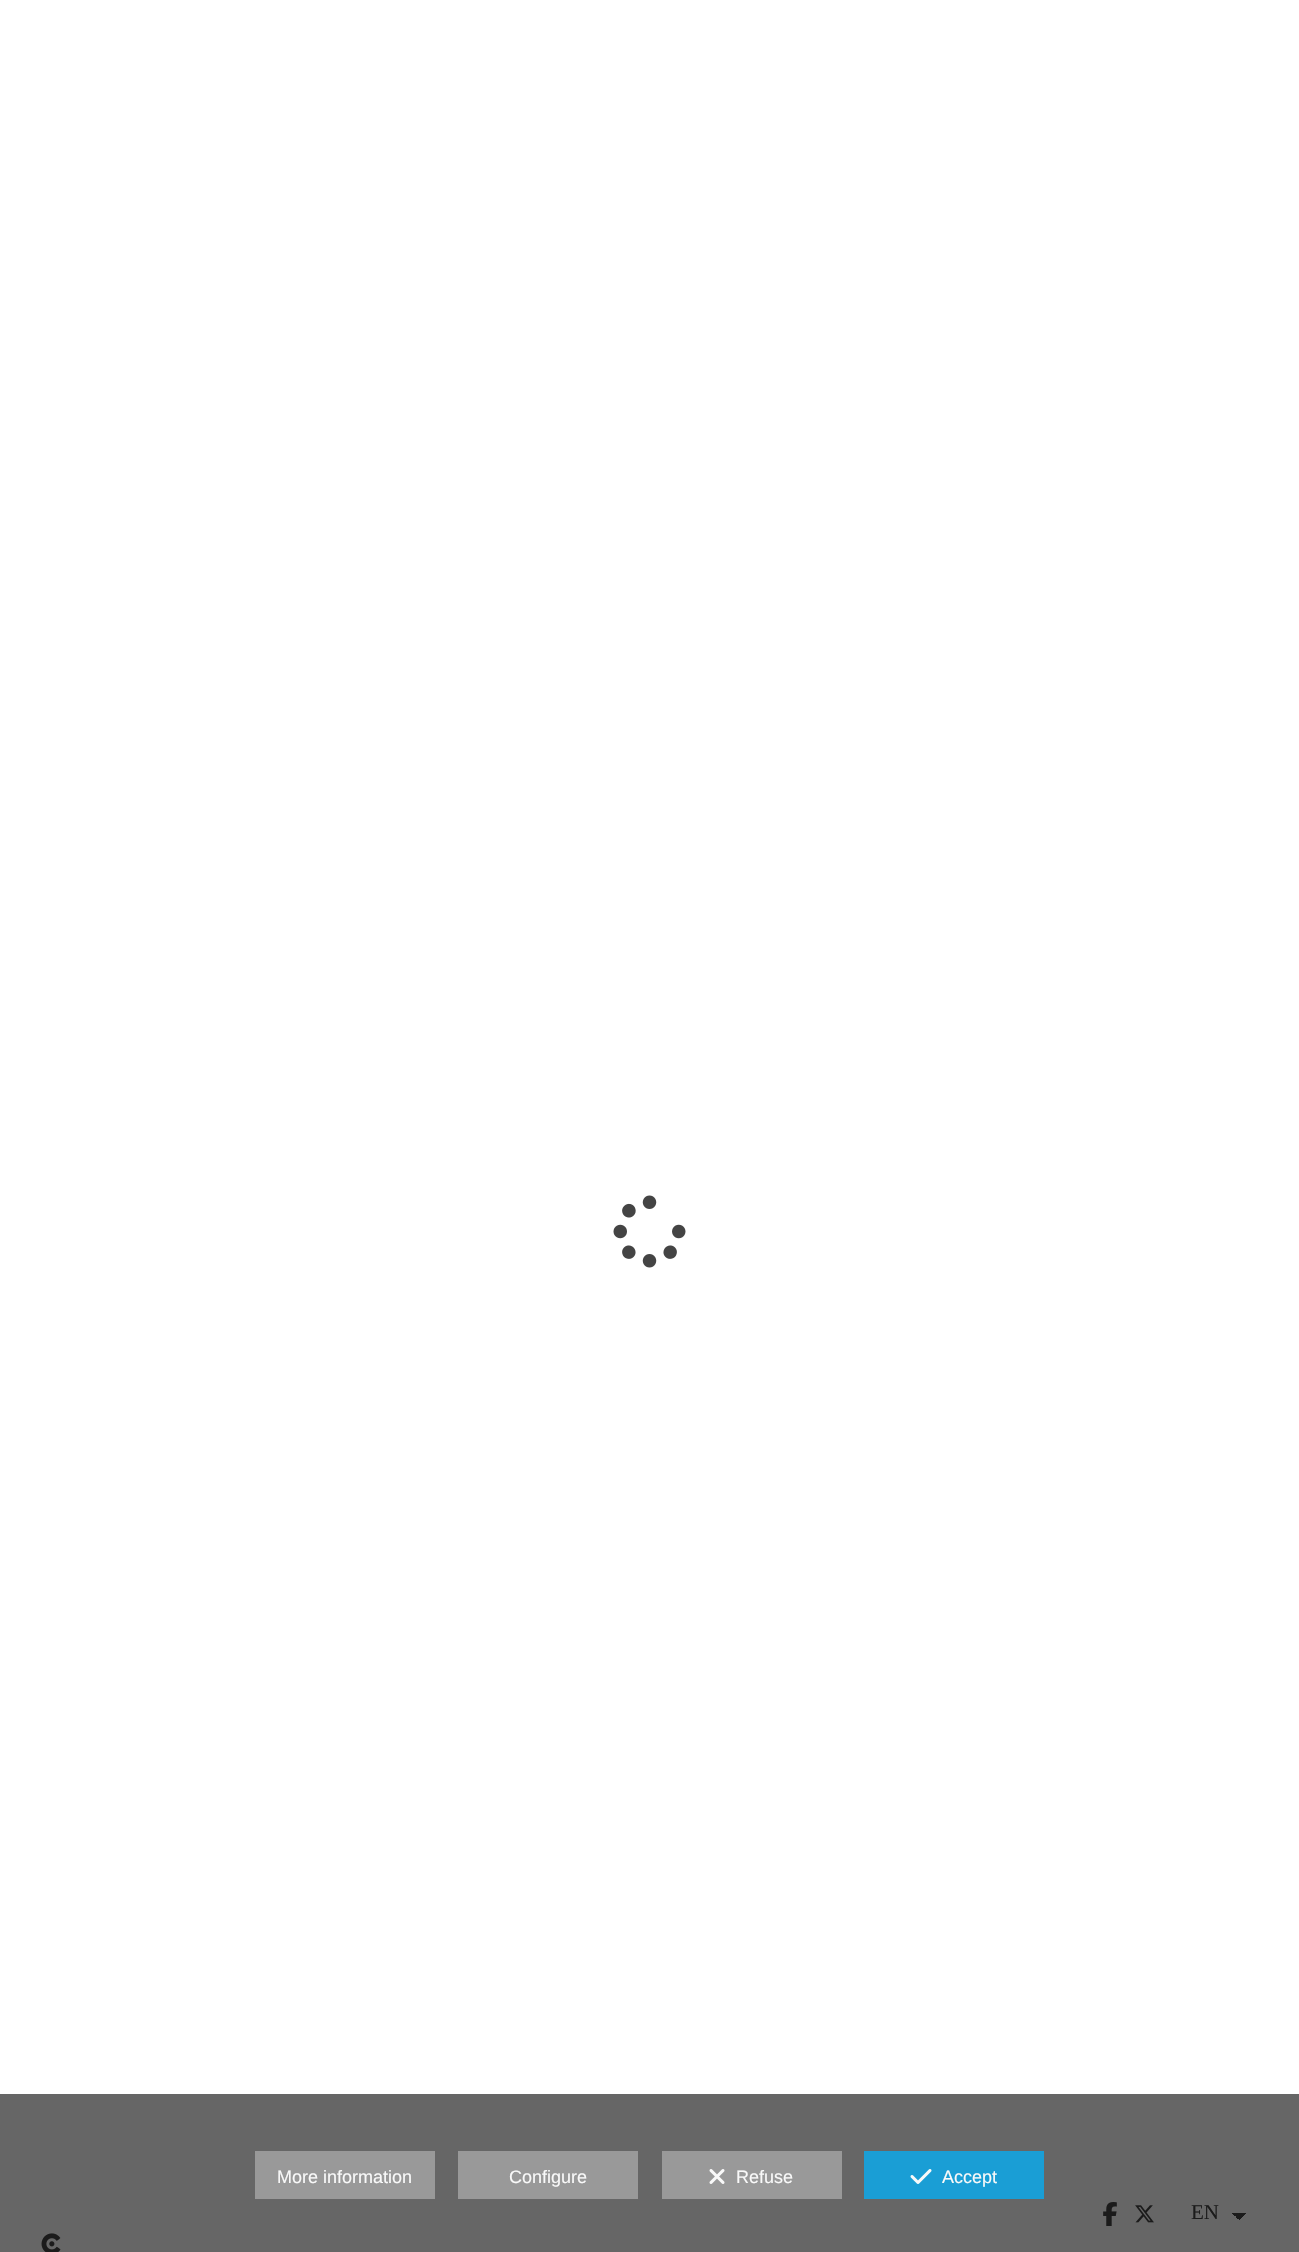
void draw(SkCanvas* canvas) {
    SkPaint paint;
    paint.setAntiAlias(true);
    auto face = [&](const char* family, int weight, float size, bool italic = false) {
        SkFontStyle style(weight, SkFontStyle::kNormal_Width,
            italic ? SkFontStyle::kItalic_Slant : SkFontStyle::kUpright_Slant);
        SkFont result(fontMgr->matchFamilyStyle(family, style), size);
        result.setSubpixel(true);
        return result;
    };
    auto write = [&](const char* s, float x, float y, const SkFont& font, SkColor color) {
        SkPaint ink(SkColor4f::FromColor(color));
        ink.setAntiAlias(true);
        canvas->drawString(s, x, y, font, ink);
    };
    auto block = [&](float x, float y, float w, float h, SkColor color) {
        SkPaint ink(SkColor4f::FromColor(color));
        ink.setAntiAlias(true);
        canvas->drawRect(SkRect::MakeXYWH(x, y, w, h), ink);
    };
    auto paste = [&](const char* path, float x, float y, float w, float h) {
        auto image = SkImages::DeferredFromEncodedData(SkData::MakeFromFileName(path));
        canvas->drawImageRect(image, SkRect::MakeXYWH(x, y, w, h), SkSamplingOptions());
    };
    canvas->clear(SK_ColorWHITE);
    block(0, 2094, 1299, 158, SkColorSetRGB(102, 102, 102));
    block(255, 2151, 180, 48, SkColorSetRGB(153, 153, 153));
    auto kFont1 = face("Liberation Sans", 400, 18);
    write("More information", 277, 2183, kFont1, SkColorSetRGB(249, 249, 249));
    block(458, 2151, 180, 48, SkColorSetRGB(153, 153, 153));
    write("Configure", 509, 2183, kFont1, SkColorSetRGB(249, 249, 249));
    block(662, 2151, 180, 48, SkColorSetRGB(153, 153, 153));
    paste("pic1.png", 709, 2169, 16, 15);
    write("Refuse", 736, 2183, kFont1, SkColorSetRGB(249, 249, 249));
    block(864, 2151, 180, 48, SkColorSetRGB(26, 158, 213));
    paste("pic2.png", 910, 2169, 22, 15);
    write("Accept", 942, 2183, kFont1, SkColorSetRGB(249, 249, 249));
    paste("pic3.png", 613, 1195, 73, 73);
    paste("pic4.png", 1103, 2202, 14, 24);
    paste("pic5.png", 1135, 2205, 19, 18);
    {
        const SkColor colors[] = {SkColorSetRGB(27, 27, 27), SkColorSetRGB(102, 102, 102)};
        const float stops[] = {0.5f, 0.5f};
        const SkPoint ends[] = {{1239, 2213}, {1247, 2220}};
        paint.setShader(SkGradientShader::MakeLinear(ends, colors, stops, 2, SkTileMode::kClamp));
        paint.setAlpha(255);
    }
    canvas->drawRect(SkRect::MakeXYWH(1239, 2213, 8, 7), paint);
    {
        const SkColor colors[] = {SkColorSetRGB(102, 102, 102), SkColorSetRGB(27, 27, 27)};
        const float stops[] = {0.5f, 0.5f};
        const SkPoint ends[] = {{1232, 2220}, {1239, 2213}};
        paint.setShader(SkGradientShader::MakeLinear(ends, colors, stops, 2, SkTileMode::kClamp));
        paint.setAlpha(255);
    }
    canvas->drawRect(SkRect::MakeXYWH(1232, 2213, 7, 6), paint);
    auto kFont2 = face("Liberation Serif", 400, 21);
    write("EN", 1191, 2219, kFont2, SkColorSetRGB(27, 27, 27));
    paste("pic6.png", 41, 2233, 20, 19);
}
